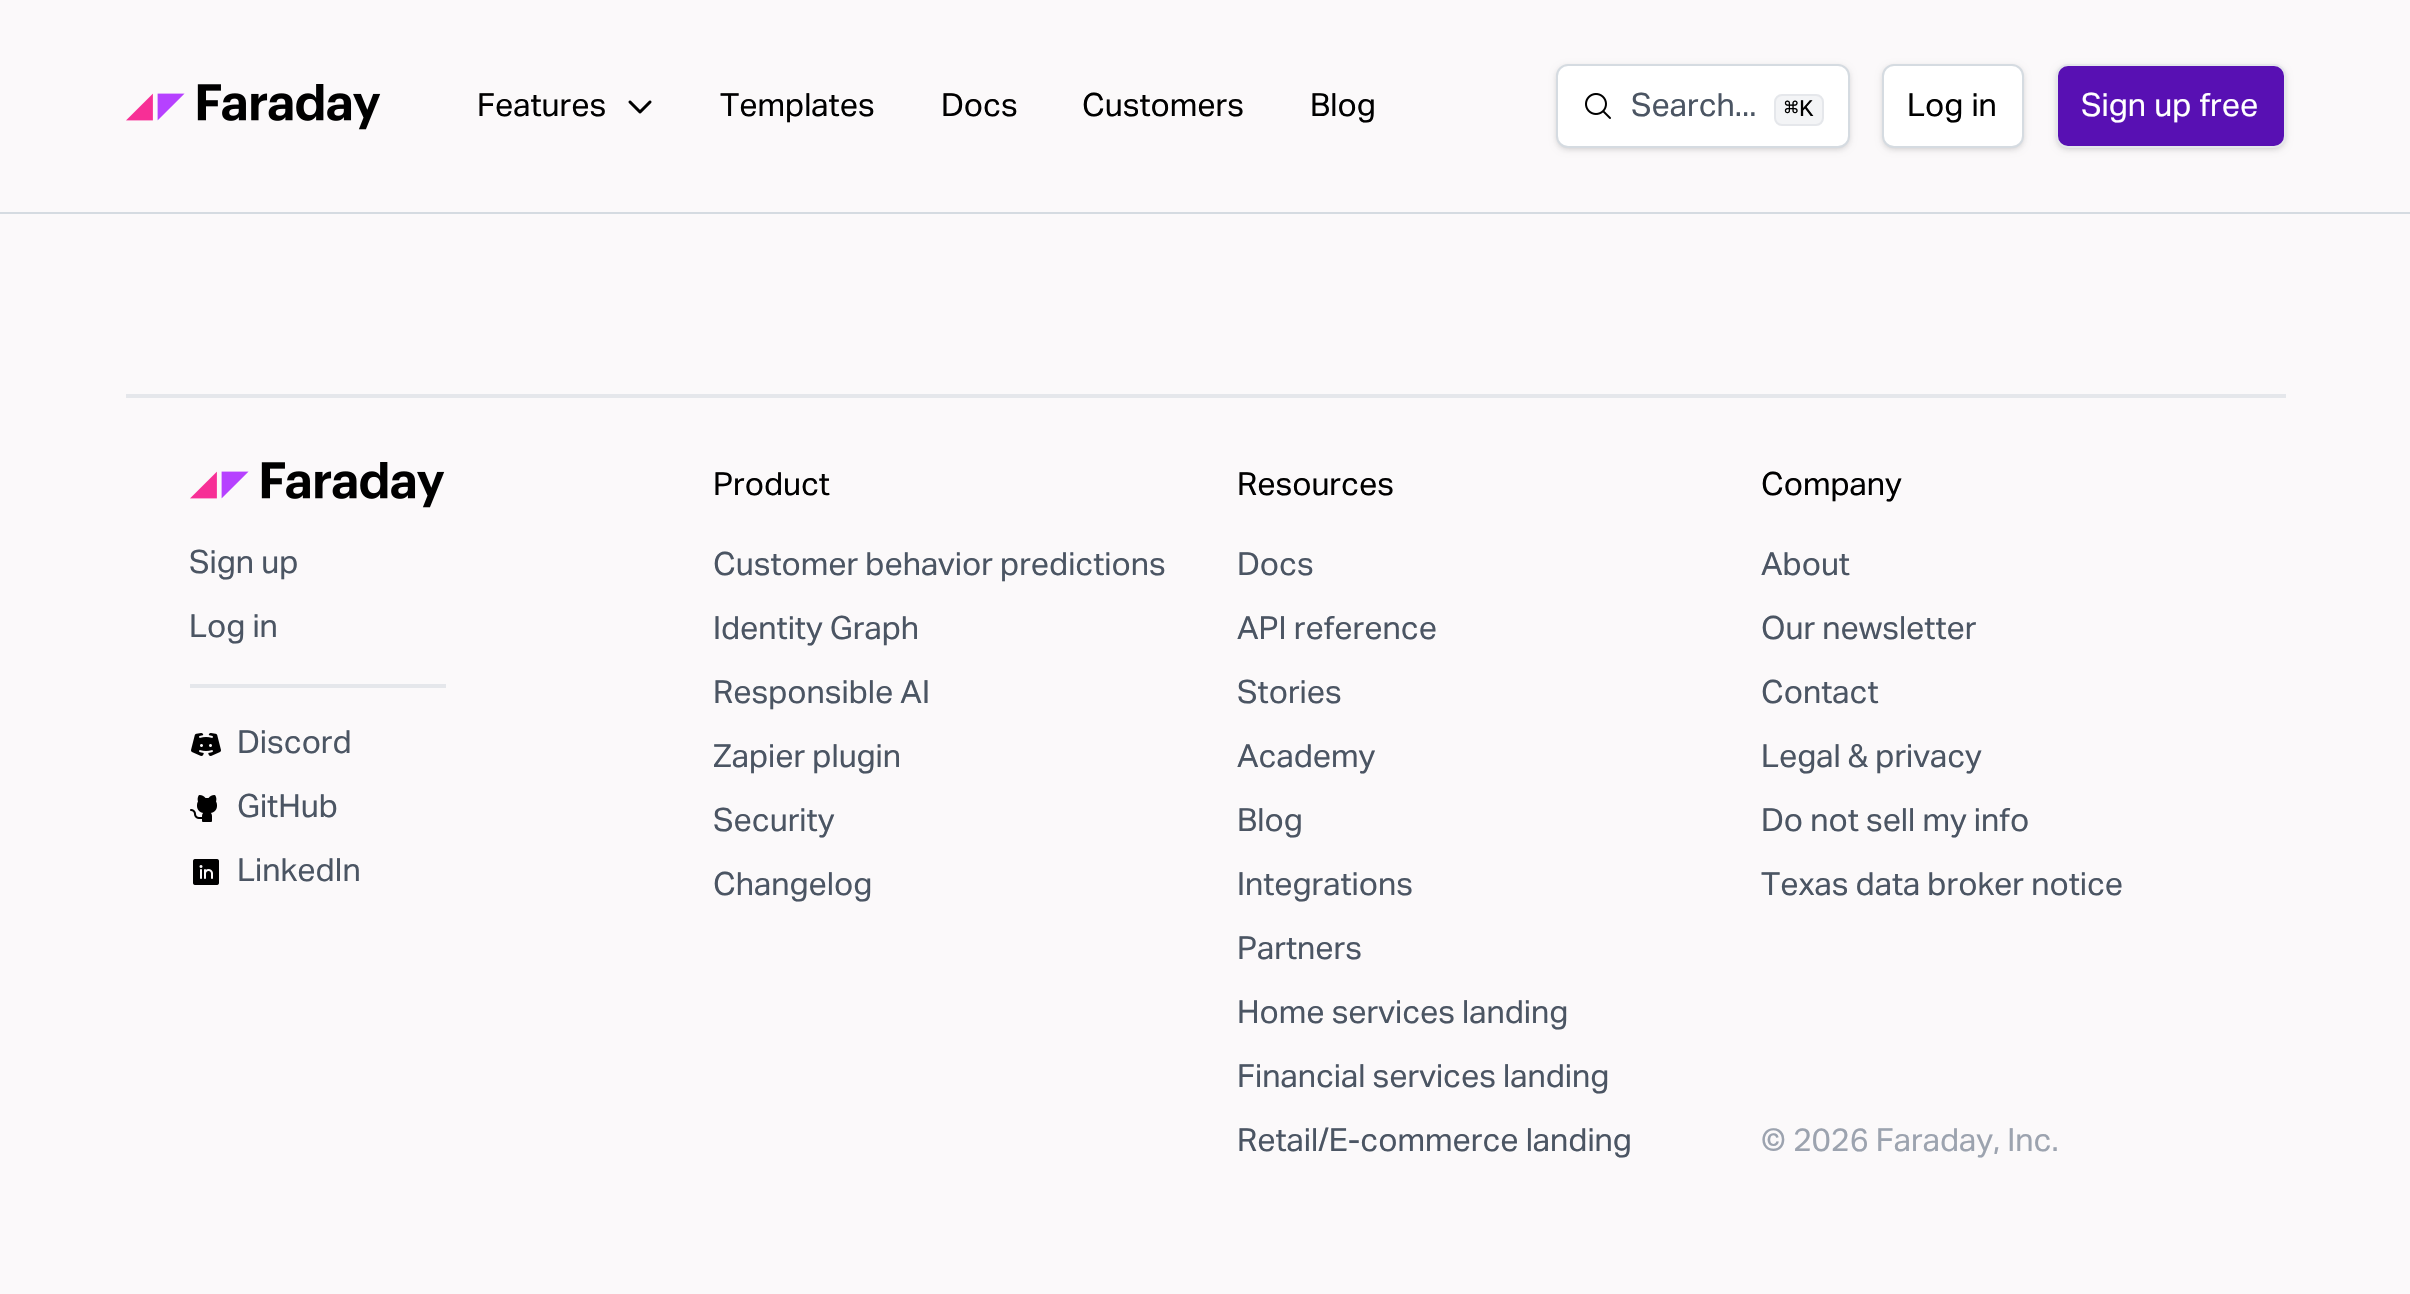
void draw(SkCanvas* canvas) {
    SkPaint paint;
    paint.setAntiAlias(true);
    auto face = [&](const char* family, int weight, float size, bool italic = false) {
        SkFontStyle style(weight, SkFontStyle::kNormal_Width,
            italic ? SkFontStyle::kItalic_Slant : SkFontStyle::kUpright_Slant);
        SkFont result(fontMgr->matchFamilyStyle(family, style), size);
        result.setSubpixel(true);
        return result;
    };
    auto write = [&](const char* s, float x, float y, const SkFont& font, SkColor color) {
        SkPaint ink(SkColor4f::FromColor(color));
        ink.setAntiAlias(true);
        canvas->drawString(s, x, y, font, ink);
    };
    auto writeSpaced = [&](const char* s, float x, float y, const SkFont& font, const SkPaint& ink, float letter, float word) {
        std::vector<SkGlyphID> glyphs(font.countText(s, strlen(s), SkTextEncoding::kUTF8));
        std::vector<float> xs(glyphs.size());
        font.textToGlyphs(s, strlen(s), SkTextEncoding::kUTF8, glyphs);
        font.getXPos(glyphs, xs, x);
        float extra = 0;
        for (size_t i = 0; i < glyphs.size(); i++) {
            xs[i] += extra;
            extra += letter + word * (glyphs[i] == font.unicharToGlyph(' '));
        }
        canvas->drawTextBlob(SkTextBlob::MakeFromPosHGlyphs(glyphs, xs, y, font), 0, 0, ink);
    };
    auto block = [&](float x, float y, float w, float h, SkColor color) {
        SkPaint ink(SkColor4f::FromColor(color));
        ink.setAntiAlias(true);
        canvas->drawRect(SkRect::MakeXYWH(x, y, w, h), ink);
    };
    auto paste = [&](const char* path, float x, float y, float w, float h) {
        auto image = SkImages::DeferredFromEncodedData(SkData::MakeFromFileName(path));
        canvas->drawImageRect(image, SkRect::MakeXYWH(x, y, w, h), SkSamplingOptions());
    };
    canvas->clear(SkColorSetRGB(251, 249, 250));
    block(0, 212, 2410, 2, SkColorSetRGB(213, 219, 225));
    paste("pic1.png", 126, 84, 255, 46);
    auto kFont1 = face("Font", 400, 32);
    write("Features", 477, 116, kFont1, SK_ColorBLACK);
    paste("pic2.png", 628, 100, 24, 14);
    write("Templates", 720, 116, kFont1, SK_ColorBLACK);
    write("Docs", 941, 116, kFont1, SK_ColorBLACK);
    write("Customers", 1082, 116, kFont1, SK_ColorBLACK);
    write("Blog", 1310, 116, kFont1, SK_ColorBLACK);
    paint.setColor(SkColorSetARGB(26, 0, 0, 0));
    paint.setMaskFilter(SkMaskFilter::MakeBlur(kNormal_SkBlurStyle, 2));
    canvas->drawRoundRect(SkRect::MakeXYWH(1558, 68, 290, 80), 10, 10, paint);
    paint.setMaskFilter(nullptr);
    paint.setMaskFilter(SkMaskFilter::MakeBlur(kNormal_SkBlurStyle, 3));
    canvas->drawRoundRect(SkRect::MakeXYWH(1556, 66, 294, 84), 12, 12, paint);
    paint.setMaskFilter(nullptr);
    paint.setColor(SK_ColorWHITE);
    canvas->drawRoundRect(SkRect::MakeXYWH(1557, 65, 292, 82), 11, 11, paint);
    paint.setStyle(SkPaint::kStroke_Style);
    paint.setStrokeWidth(2);
    paint.setColor(SkColorSetRGB(213, 219, 225));
    canvas->drawRoundRect(SkRect::MakeXYWH(1557, 65, 292, 82), 11, 11, paint);
    paste("pic3.png", 1585, 93, 26, 26);
    write("Search...", 1631, 116, kFont1, SkColorSetRGB(75, 85, 99));
    paint.setStyle(SkPaint::kFill_Style);
    paint.setColor(SkColorSetRGB(243, 244, 246));
    canvas->drawRoundRect(SkRect::MakeXYWH(1775, 95, 48, 30), 7, 7, paint);
    paint.setStyle(SkPaint::kStroke_Style);
    paint.setColor(SkColorSetRGB(229, 231, 235));
    canvas->drawRoundRect(SkRect::MakeXYWH(1775, 95, 48, 30), 7, 7, paint);
    auto kFont2 = face("DejaVu Sans Mono", 400, 24);
    write("⌘", 1784, 116, kFont2, SK_ColorBLACK);
    auto kFont3 = face("Liberation Mono", 400, 24);
    write("K", 1799, 116, kFont3, SK_ColorBLACK);
    paint.setStyle(SkPaint::kFill_Style);
    paint.setColor(SkColorSetARGB(26, 0, 0, 0));
    paint.setMaskFilter(SkMaskFilter::MakeBlur(kNormal_SkBlurStyle, 2));
    canvas->drawRoundRect(SkRect::MakeXYWH(1884, 68, 138, 80), 10, 10, paint);
    paint.setMaskFilter(nullptr);
    paint.setMaskFilter(SkMaskFilter::MakeBlur(kNormal_SkBlurStyle, 3));
    canvas->drawRoundRect(SkRect::MakeXYWH(1882, 66, 142, 84), 12, 12, paint);
    paint.setMaskFilter(nullptr);
    paint.setColor(SK_ColorWHITE);
    canvas->drawRoundRect(SkRect::MakeXYWH(1883, 65, 140, 82), 11, 11, paint);
    paint.setStyle(SkPaint::kStroke_Style);
    paint.setColor(SkColorSetRGB(213, 219, 225));
    canvas->drawRoundRect(SkRect::MakeXYWH(1883, 65, 140, 82), 11, 11, paint);
    paint.setStyle(SkPaint::kFill_Style);
    paint.setColor(SK_ColorBLACK);
    writeSpaced("Log in", 1907, 116, kFont1, paint, 0, 1);
    paint.setColor(SkColorSetARGB(26, 0, 0, 0));
    paint.setMaskFilter(SkMaskFilter::MakeBlur(kNormal_SkBlurStyle, 2));
    canvas->drawRoundRect(SkRect::MakeXYWH(2058, 68, 226, 80), 10, 10, paint);
    paint.setMaskFilter(nullptr);
    paint.setMaskFilter(SkMaskFilter::MakeBlur(kNormal_SkBlurStyle, 3));
    canvas->drawRoundRect(SkRect::MakeXYWH(2056, 66, 230, 84), 12, 12, paint);
    paint.setMaskFilter(nullptr);
    paint.setColor(SkColorSetRGB(88, 16, 179));
    canvas->drawRoundRect(SkRect::MakeXYWH(2057, 65, 228, 82), 11, 11, paint);
    paint.setStyle(SkPaint::kStroke_Style);
    paint.setColor(SkColorSetRGB(229, 231, 235));
    canvas->drawRoundRect(SkRect::MakeXYWH(2057, 65, 228, 82), 11, 11, paint);
    paint.setStyle(SkPaint::kFill_Style);
    paint.setColor(SK_ColorWHITE);
    writeSpaced("Sign up free", 2081, 116, kFont1, paint, 0, 1);
    block(126, 394, 2160, 4, SkColorSetRGB(229, 231, 235));
    paste("pic1.png", 190, 462, 255, 46);
    write("Sign up", 189, 573, kFont1, SkColorSetRGB(75, 85, 99));
    write("Log in", 189, 637, kFont1, SkColorSetRGB(75, 85, 99));
    block(190, 684, 256, 4, SkColorSetRGB(229, 231, 235));
    paste("pic4.png", 191, 733, 30, 23);
    write("Discord", 237, 753, kFont1, SkColorSetRGB(75, 85, 99));
    paste("pic5.png", 190, 795, 27, 27);
    write("GitHub", 237, 817, kFont1, SkColorSetRGB(75, 85, 99));
    paste("pic6.png", 193, 859, 26, 26);
    write("LinkedIn", 237, 881, kFont1, SkColorSetRGB(75, 85, 99));
    write("Product", 713, 495, kFont1, SK_ColorBLACK);
    write("Customer behavior predictions", 713, 575, kFont1, SkColorSetRGB(75, 85, 99));
    write("Identity Graph", 713, 639, kFont1, SkColorSetRGB(75, 85, 99));
    write("Responsible AI", 713, 703, kFont1, SkColorSetRGB(75, 85, 99));
    write("Zapier plugin", 713, 767, kFont1, SkColorSetRGB(75, 85, 99));
    write("Security", 713, 831, kFont1, SkColorSetRGB(75, 85, 99));
    write("Changelog", 713, 895, kFont1, SkColorSetRGB(75, 85, 99));
    write("Resources", 1237, 495, kFont1, SK_ColorBLACK);
    write("Docs", 1237, 575, kFont1, SkColorSetRGB(75, 85, 99));
    write("API reference", 1237, 639, kFont1, SkColorSetRGB(75, 85, 99));
    write("Stories", 1237, 703, kFont1, SkColorSetRGB(75, 85, 99));
    write("Academy", 1237, 767, kFont1, SkColorSetRGB(75, 85, 99));
    write("Blog", 1237, 831, kFont1, SkColorSetRGB(75, 85, 99));
    write("Integrations", 1237, 895, kFont1, SkColorSetRGB(75, 85, 99));
    write("Partners", 1237, 959, kFont1, SkColorSetRGB(75, 85, 99));
    write("Home services landing", 1237, 1023, kFont1, SkColorSetRGB(75, 85, 99));
    write("Financial services landing", 1237, 1087, kFont1, SkColorSetRGB(75, 85, 99));
    write("Retail/E-commerce landing", 1237, 1151, kFont1, SkColorSetRGB(75, 85, 99));
    write("Company", 1761, 495, kFont1, SK_ColorBLACK);
    write("About", 1761, 575, kFont1, SkColorSetRGB(75, 85, 99));
    write("Our newsletter", 1761, 639, kFont1, SkColorSetRGB(75, 85, 99));
    write("Contact", 1761, 703, kFont1, SkColorSetRGB(75, 85, 99));
    write("Legal & privacy", 1761, 767, kFont1, SkColorSetRGB(75, 85, 99));
    write("Do not sell my info", 1761, 831, kFont1, SkColorSetRGB(75, 85, 99));
    write("Texas data broker notice", 1761, 895, kFont1, SkColorSetRGB(75, 85, 99));
    write("© 2026 Faraday, Inc.", 1761, 1151, kFont1, SkColorSetRGB(156, 163, 175));
}
